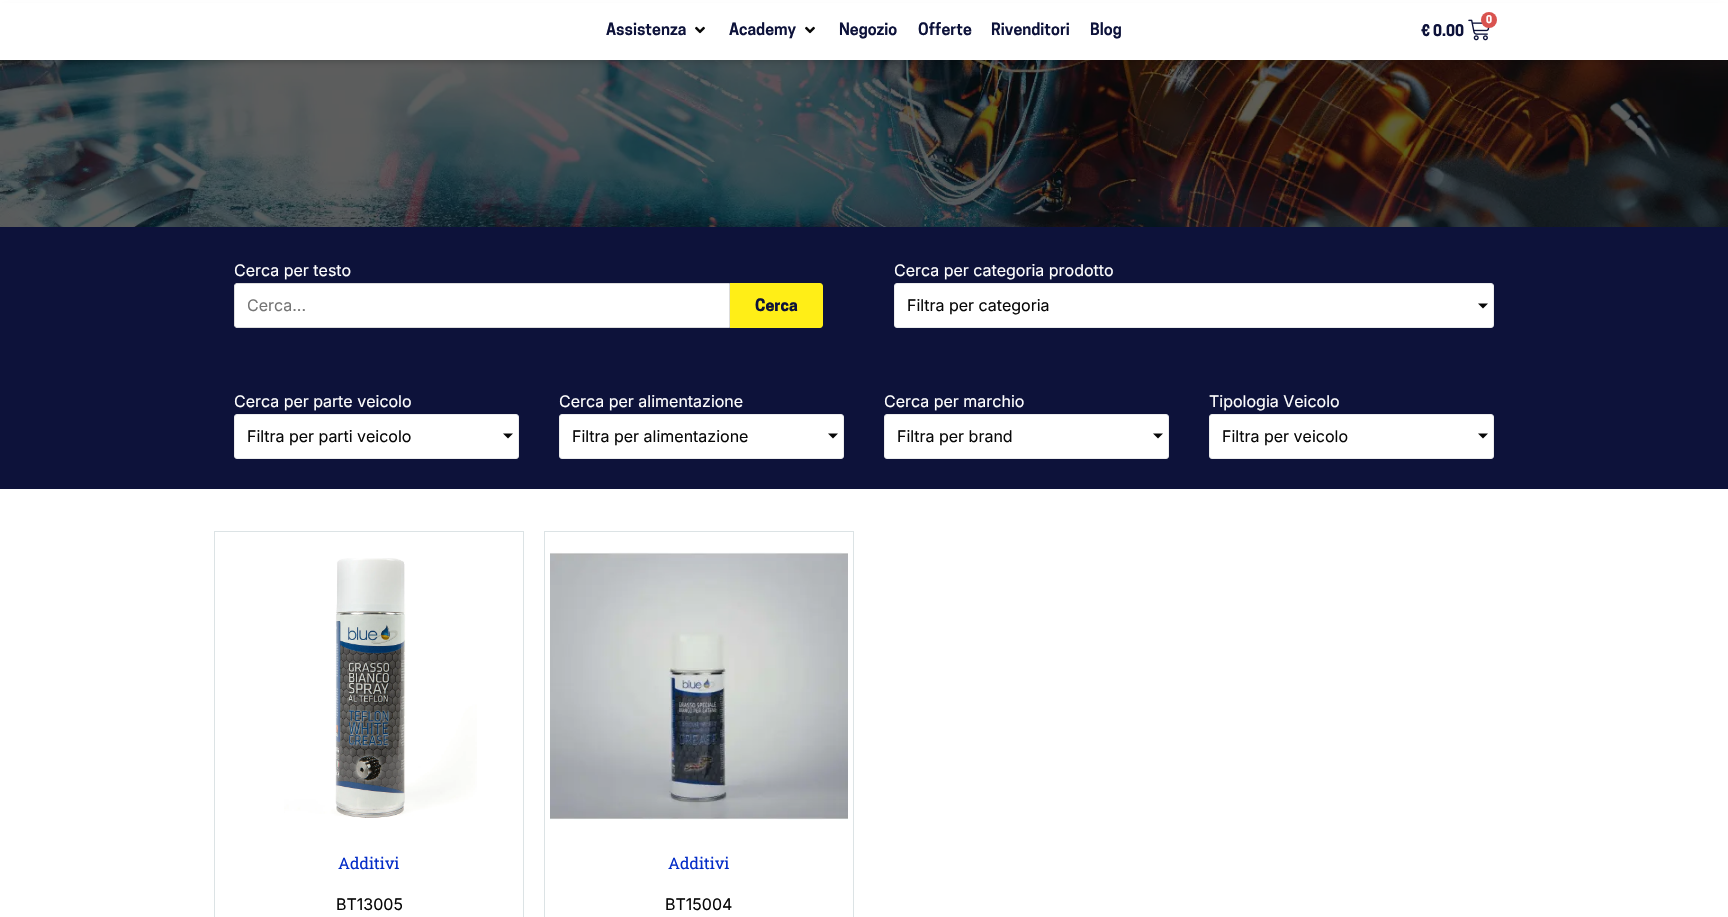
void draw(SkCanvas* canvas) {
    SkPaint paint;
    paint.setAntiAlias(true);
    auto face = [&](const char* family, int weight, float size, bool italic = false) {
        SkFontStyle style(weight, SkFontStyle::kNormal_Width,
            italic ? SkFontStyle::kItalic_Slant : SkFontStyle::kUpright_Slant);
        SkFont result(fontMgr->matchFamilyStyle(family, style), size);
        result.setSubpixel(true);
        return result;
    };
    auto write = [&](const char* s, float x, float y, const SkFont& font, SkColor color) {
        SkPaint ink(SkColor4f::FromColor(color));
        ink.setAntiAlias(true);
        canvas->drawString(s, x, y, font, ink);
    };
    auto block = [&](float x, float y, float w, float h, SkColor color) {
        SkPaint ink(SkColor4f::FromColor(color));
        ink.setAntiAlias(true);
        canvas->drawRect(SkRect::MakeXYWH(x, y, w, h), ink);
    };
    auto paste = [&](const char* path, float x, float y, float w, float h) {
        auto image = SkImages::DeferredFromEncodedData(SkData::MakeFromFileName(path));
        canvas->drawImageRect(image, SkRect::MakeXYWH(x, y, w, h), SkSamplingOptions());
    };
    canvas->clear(SK_ColorWHITE);
    paste("pic3.png", 0, 60, 1728, 167);
    paint.setColor(SkColorSetARGB(128, 0, 0, 0));
    paint.setMaskFilter(SkMaskFilter::MakeBlur(kNormal_SkBlurStyle, 5));
    canvas->drawRect(SkRect::MakeXYWH(8, 13, 1712, 44), paint);
    paint.setMaskFilter(nullptr);
    block(0, 3, 1728, 57, SK_ColorWHITE);
    auto kFont1 = face("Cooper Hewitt", 600, 16);
    write("Assistenza", 606, 35, kFont1, SkColorSetRGB(13, 18, 58));
    paste("pic1.png", 695, 26, 10, 8);
    write("Academy", 729, 35, kFont1, SkColorSetRGB(13, 18, 58));
    paste("pic1.png", 805, 26, 10, 8);
    write("Negozio", 839, 35, kFont1, SkColorSetRGB(13, 18, 58));
    write("Offerte", 918, 35, kFont1, SkColorSetRGB(13, 18, 58));
    write("Rivenditori", 991, 35, kFont1, SkColorSetRGB(13, 18, 58));
    write("Blog", 1090, 35, kFont1, SkColorSetRGB(13, 18, 58));
    paste("pic2.png", 1468, 19, 22, 22);
    paint.setColor(SkColorSetRGB(217, 83, 79));
    canvas->drawCircle(1489, 20, 8, paint);
    auto kFont2 = face("Cooper Hewitt", 700, 10);
    write("0", 1486, 23, kFont2, SK_ColorWHITE);
    auto kFont3 = face("Cooper Hewitt", 700, 15);
    write("€ 0.00", 1421, 36, kFont3, SkColorSetRGB(13, 18, 58));
    block(0, 227, 1728, 262, SkColorSetRGB(13, 18, 58));
    auto kFont4 = face("Inter", 400, 16);
    write("Cerca per testo", 234, 276, kFont4, SK_ColorWHITE);
    paint.setColor(SK_ColorWHITE);
    canvas->drawPath(SkPathBuilder().moveTo(237, 283.5f).lineTo(729.5f, 283.5f).lineTo(729.5f, 327.5f).lineTo(237, 327.5f).cubicTo(235.5f, 327.5f, 234.5f, 326.5f, 234.5f, 325).lineTo(234.5f, 286).cubicTo(234.5f, 284.5f, 235.5f, 283.5f, 237, 283.5f).close().detach(), paint);
    paint.setStyle(SkPaint::kStroke_Style);
    paint.setStrokeWidth(1);
    paint.setColor(SkColorSetRGB(221, 221, 221));
    canvas->drawPath(SkPathBuilder().moveTo(237, 283.5f).lineTo(729.5f, 283.5f).lineTo(729.5f, 327.5f).lineTo(237, 327.5f).cubicTo(235.5f, 327.5f, 234.5f, 326.5f, 234.5f, 325).lineTo(234.5f, 286).cubicTo(234.5f, 284.5f, 235.5f, 283.5f, 237, 283.5f).close().detach(), paint);
    write("Cerca...", 247, 311, kFont4, SkColorSetRGB(117, 117, 117));
    paint.setStyle(SkPaint::kFill_Style);
    paint.setColor(SkColorSetRGB(255, 238, 23));
    canvas->drawPath(SkPathBuilder().moveTo(730, 283).lineTo(820, 283).cubicTo(821.5f, 283, 823, 284.5f, 823, 286).lineTo(823, 325).cubicTo(823, 326.5f, 821.5f, 328, 820, 328).lineTo(730, 328).close().detach(), paint);
    auto kFont5 = face("Cooper Hewitt", 700, 16);
    write("Cerca", 755, 311, kFont5, SkColorSetRGB(13, 18, 58));
    write("Cerca per categoria prodotto", 894, 276, kFont4, SK_ColorWHITE);
    paint.setColor(SK_ColorWHITE);
    canvas->drawRoundRect(SkRect::MakeXYWH(894.5f, 283.5f, 599, 44), 2.5f, 2.5f, paint);
    paint.setStyle(SkPaint::kStroke_Style);
    paint.setColor(SkColorSetRGB(235, 236, 237));
    canvas->drawRoundRect(SkRect::MakeXYWH(894.5f, 283.5f, 599, 44), 2.5f, 2.5f, paint);
    write("Filtra per categoria", 907, 311, kFont4, SkColorSetRGB(8, 8, 8));
    paint.setStyle(SkPaint::kFill_Style);
    paint.setColor(SkColorSetRGB(8, 8, 8));
    canvas->drawPath(SkPathBuilder().moveTo(1478, 303.5f).lineTo(1488, 303.5f).lineTo(1483, 308.5f).close().detach(), paint);
    write("Cerca per parte veicolo", 234, 407, kFont4, SK_ColorWHITE);
    paint.setColor(SK_ColorWHITE);
    canvas->drawRoundRect(SkRect::MakeXYWH(234.5f, 414.5f, 284, 44), 2.5f, 2.5f, paint);
    paint.setStyle(SkPaint::kStroke_Style);
    paint.setColor(SkColorSetRGB(235, 236, 237));
    canvas->drawRoundRect(SkRect::MakeXYWH(234.5f, 414.5f, 284, 44), 2.5f, 2.5f, paint);
    write("Filtra per parti veicolo", 247, 442, kFont4, SkColorSetRGB(8, 8, 8));
    paint.setStyle(SkPaint::kFill_Style);
    paint.setColor(SkColorSetRGB(8, 8, 8));
    canvas->drawPath(SkPathBuilder().moveTo(503, 433.5f).lineTo(513, 433.5f).lineTo(508, 438.5f).close().detach(), paint);
    write("Cerca per alimentazione", 559, 407, kFont4, SK_ColorWHITE);
    paint.setColor(SK_ColorWHITE);
    canvas->drawRoundRect(SkRect::MakeXYWH(559.5f, 414.5f, 284, 44), 2.5f, 2.5f, paint);
    paint.setStyle(SkPaint::kStroke_Style);
    paint.setColor(SkColorSetRGB(235, 236, 237));
    canvas->drawRoundRect(SkRect::MakeXYWH(559.5f, 414.5f, 284, 44), 2.5f, 2.5f, paint);
    write("Filtra per alimentazione", 572, 442, kFont4, SkColorSetRGB(8, 8, 8));
    paint.setStyle(SkPaint::kFill_Style);
    paint.setColor(SkColorSetRGB(8, 8, 8));
    canvas->drawPath(SkPathBuilder().moveTo(828, 433.5f).lineTo(838, 433.5f).lineTo(833, 438.5f).close().detach(), paint);
    write("Cerca per marchio", 884, 407, kFont4, SK_ColorWHITE);
    paint.setColor(SK_ColorWHITE);
    canvas->drawRoundRect(SkRect::MakeXYWH(884.5f, 414.5f, 284, 44), 2.5f, 2.5f, paint);
    paint.setStyle(SkPaint::kStroke_Style);
    paint.setColor(SkColorSetRGB(235, 236, 237));
    canvas->drawRoundRect(SkRect::MakeXYWH(884.5f, 414.5f, 284, 44), 2.5f, 2.5f, paint);
    write("Filtra per brand", 897, 442, kFont4, SkColorSetRGB(8, 8, 8));
    paint.setStyle(SkPaint::kFill_Style);
    paint.setColor(SkColorSetRGB(8, 8, 8));
    canvas->drawPath(SkPathBuilder().moveTo(1153, 433.5f).lineTo(1163, 433.5f).lineTo(1158, 438.5f).close().detach(), paint);
    write("Tipologia Veicolo", 1209, 407, kFont4, SK_ColorWHITE);
    paint.setColor(SK_ColorWHITE);
    canvas->drawRoundRect(SkRect::MakeXYWH(1209.5f, 414.5f, 284, 44), 2.5f, 2.5f, paint);
    paint.setStyle(SkPaint::kStroke_Style);
    paint.setColor(SkColorSetRGB(235, 236, 237));
    canvas->drawRoundRect(SkRect::MakeXYWH(1209.5f, 414.5f, 284, 44), 2.5f, 2.5f, paint);
    write("Filtra per veicolo", 1222, 442, kFont4, SkColorSetRGB(8, 8, 8));
    paint.setStyle(SkPaint::kFill_Style);
    paint.setColor(SkColorSetRGB(8, 8, 8));
    canvas->drawPath(SkPathBuilder().moveTo(1478, 433.5f).lineTo(1488, 433.5f).lineTo(1483, 438.5f).close().detach(), paint);
    paint.setStyle(SkPaint::kStroke_Style);
    paint.setColor(SkColorSetRGB(220, 227, 229));
    canvas->drawRect(SkRect::MakeXYWH(214.5f, 531.5f, 309, 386), paint);
    paste("pic4.png", 284, 558, 193, 260);
    auto kFont6 = face("Roboto Slab", 400, 16);
    write("Additivi", 338, 869, kFont6, SkColorSetRGB(3, 45, 200));
    write("BT13005", 336, 910, kFont4, SkColorSetRGB(8, 8, 8));
    canvas->drawRect(SkRect::MakeXYWH(544.5f, 531.5f, 309, 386), paint);
    paste("pic5.png", 550, 552, 298, 268);
    write("Additivi", 668, 869, kFont6, SkColorSetRGB(3, 45, 200));
    write("BT15004", 665, 910, kFont4, SkColorSetRGB(8, 8, 8));
}
